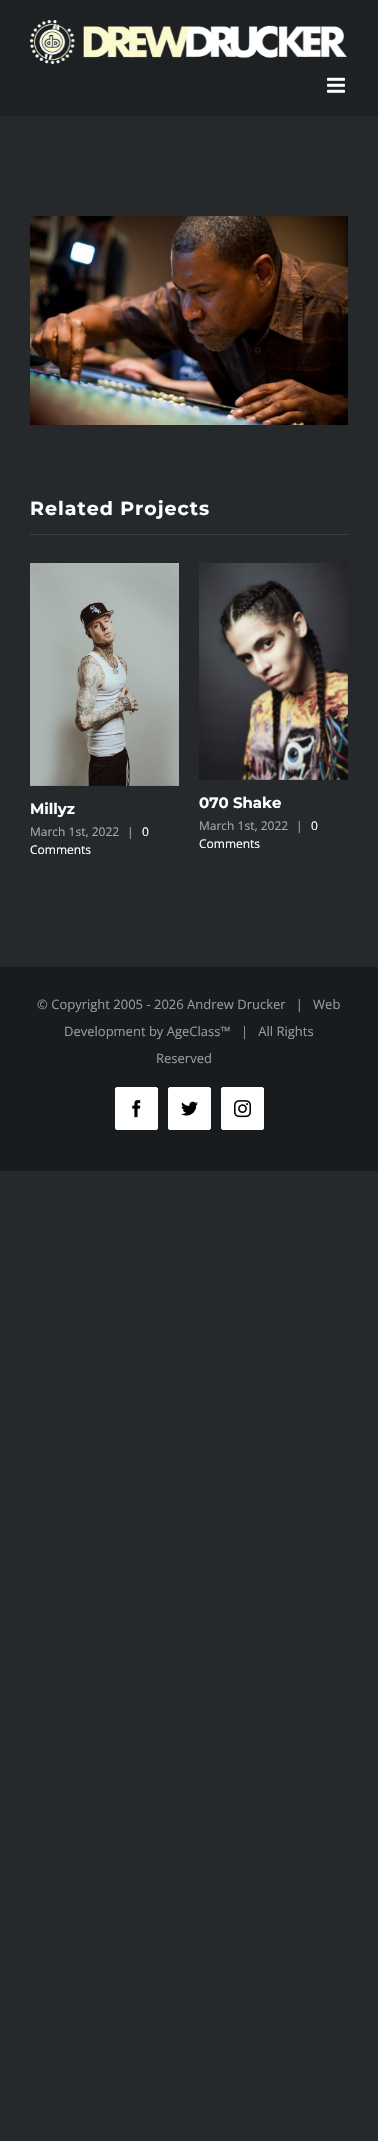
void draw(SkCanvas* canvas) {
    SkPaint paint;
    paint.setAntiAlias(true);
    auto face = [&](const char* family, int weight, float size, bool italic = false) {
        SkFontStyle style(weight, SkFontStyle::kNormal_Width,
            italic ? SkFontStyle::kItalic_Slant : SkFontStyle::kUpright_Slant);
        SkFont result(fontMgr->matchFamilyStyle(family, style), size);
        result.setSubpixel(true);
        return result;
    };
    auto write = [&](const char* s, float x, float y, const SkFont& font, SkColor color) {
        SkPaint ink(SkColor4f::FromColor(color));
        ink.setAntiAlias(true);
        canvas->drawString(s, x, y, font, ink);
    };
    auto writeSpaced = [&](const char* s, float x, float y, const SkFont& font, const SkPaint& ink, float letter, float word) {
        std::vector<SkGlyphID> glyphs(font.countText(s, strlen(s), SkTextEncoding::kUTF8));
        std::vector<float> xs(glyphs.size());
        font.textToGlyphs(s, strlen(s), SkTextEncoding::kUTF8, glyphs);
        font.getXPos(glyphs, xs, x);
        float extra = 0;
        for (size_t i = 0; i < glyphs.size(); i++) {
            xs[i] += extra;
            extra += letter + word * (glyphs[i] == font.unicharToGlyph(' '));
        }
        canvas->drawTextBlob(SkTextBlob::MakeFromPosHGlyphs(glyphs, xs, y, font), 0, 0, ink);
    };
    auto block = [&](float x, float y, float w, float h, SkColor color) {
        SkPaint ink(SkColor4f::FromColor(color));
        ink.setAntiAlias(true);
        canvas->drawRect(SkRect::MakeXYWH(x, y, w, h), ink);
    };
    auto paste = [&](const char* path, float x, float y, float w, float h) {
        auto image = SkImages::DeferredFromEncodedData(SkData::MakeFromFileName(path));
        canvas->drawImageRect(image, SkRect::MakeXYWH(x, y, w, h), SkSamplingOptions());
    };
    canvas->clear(SkColorSetRGB(37, 41, 43));
    block(0, 0, 378, 116, SkColorSetRGB(30, 33, 35));
    paste("pic1.png", 30, 20, 317, 44);
    paste("pic2.png", 327, 77, 18, 16);
    paste("pic3.png", 30, 216, 318, 209);
    block(30, 534, 318, 1, SkColorSetRGB(62, 62, 62));
    auto kFont1 = face("Montserrat", 700, 19);
    paint.setColor(SK_ColorWHITE);
    writeSpaced("Related Projects", 30, 515, kFont1, paint, 1, 0);
    paste("pic4.png", 30, 563, 149, 223);
    auto kFont2 = face("Montserrat", 700, 15);
    write("Millyz", 30, 814, kFont2, SK_ColorWHITE);
    auto kFont3 = face("Open Sans", 400, 12);
    write("March 1st, 2022", 30, 836, kFont3, SkColorSetRGB(170, 169, 169));
    write("|", 127, 836, kFont3, SkColorSetRGB(170, 169, 169));
    write("0", 142, 836, kFont3, SK_ColorWHITE);
    write("Comments", 30, 854, kFont3, SK_ColorWHITE);
    paste("pic5.png", 199, 563, 149, 217);
    write("070 Shake", 199, 808, kFont2, SK_ColorWHITE);
    write("March 1st, 2022", 199, 830, kFont3, SkColorSetRGB(170, 169, 169));
    write("|", 296, 830, kFont3, SkColorSetRGB(170, 169, 169));
    write("0", 311, 830, kFont3, SK_ColorWHITE);
    write("Comments", 199, 848, kFont3, SK_ColorWHITE);
    block(0, 967, 378, 204, SkColorSetRGB(25, 28, 30));
    auto kFont4 = face("Open Sans", 400, 13);
    write("© Copyright 2005 - 2026 Andrew Drucker   |   Web", 37, 1009, kFont4, SkColorSetRGB(153, 153, 153));
    write("Development by AgeClass™", 64, 1036, kFont4, SkColorSetRGB(153, 153, 153));
    write("|   All Rights", 241, 1036, kFont4, SkColorSetRGB(153, 153, 153));
    write("Reserved", 156, 1063, kFont4, SkColorSetRGB(153, 153, 153));
    canvas->drawRoundRect(SkRect::MakeXYWH(115.5f, 1087.5f, 42, 42), 1.5f, 1.5f, paint);
    paint.setStyle(SkPaint::kStroke_Style);
    paint.setStrokeWidth(1);
    canvas->drawRoundRect(SkRect::MakeXYWH(115.5f, 1087.5f, 42, 42), 1.5f, 1.5f, paint);
    paste("pic6.png", 132, 1100, 9, 18);
    paint.setStyle(SkPaint::kFill_Style);
    canvas->drawRoundRect(SkRect::MakeXYWH(168.5f, 1087.5f, 42, 42), 1.5f, 1.5f, paint);
    paint.setStyle(SkPaint::kStroke_Style);
    canvas->drawRoundRect(SkRect::MakeXYWH(168.5f, 1087.5f, 42, 42), 1.5f, 1.5f, paint);
    paste("pic7.png", 181, 1101, 17, 15);
    paint.setStyle(SkPaint::kFill_Style);
    canvas->drawRoundRect(SkRect::MakeXYWH(221.5f, 1087.5f, 42, 42), 1.5f, 1.5f, paint);
    paint.setStyle(SkPaint::kStroke_Style);
    canvas->drawRoundRect(SkRect::MakeXYWH(221.5f, 1087.5f, 42, 42), 1.5f, 1.5f, paint);
    paste("pic8.png", 234, 1100, 17, 18);
}
